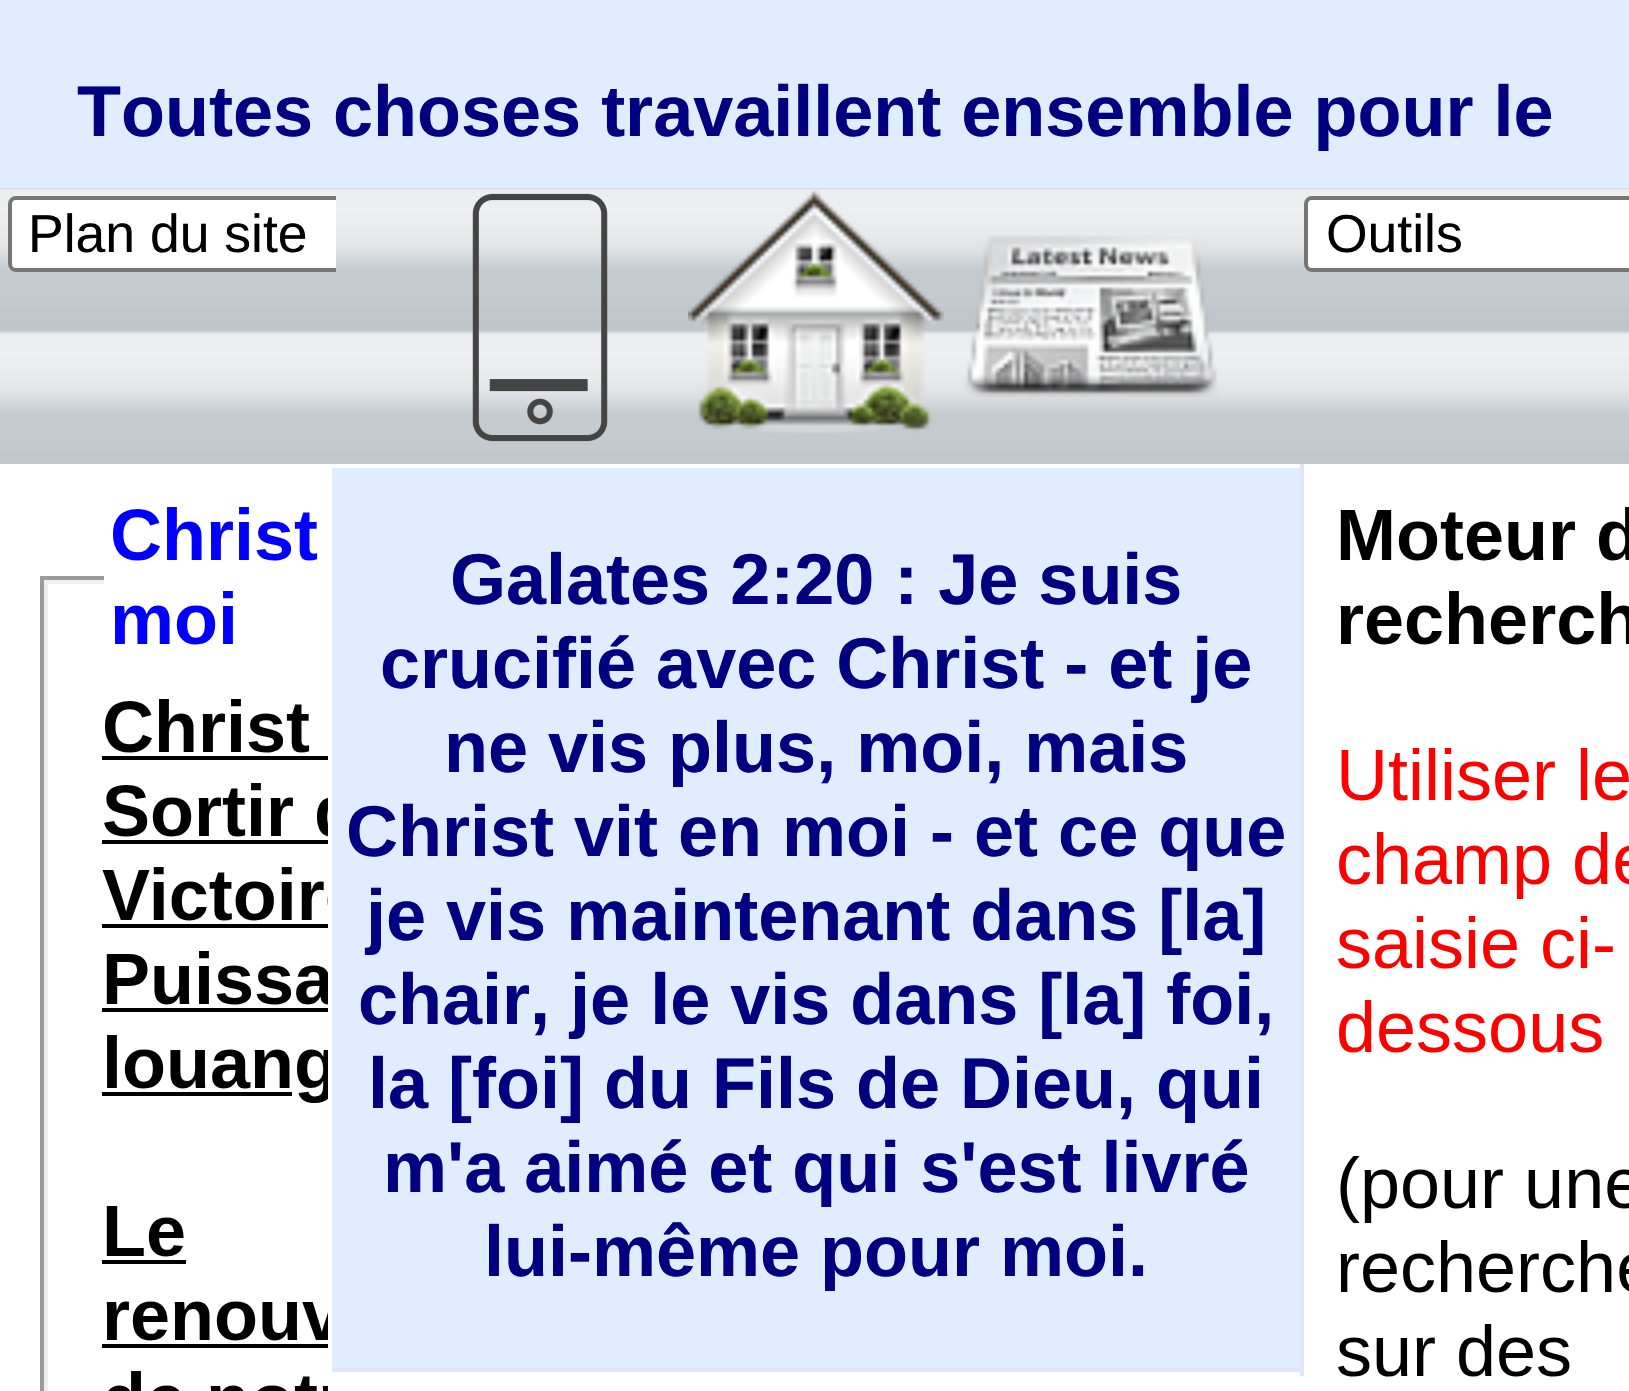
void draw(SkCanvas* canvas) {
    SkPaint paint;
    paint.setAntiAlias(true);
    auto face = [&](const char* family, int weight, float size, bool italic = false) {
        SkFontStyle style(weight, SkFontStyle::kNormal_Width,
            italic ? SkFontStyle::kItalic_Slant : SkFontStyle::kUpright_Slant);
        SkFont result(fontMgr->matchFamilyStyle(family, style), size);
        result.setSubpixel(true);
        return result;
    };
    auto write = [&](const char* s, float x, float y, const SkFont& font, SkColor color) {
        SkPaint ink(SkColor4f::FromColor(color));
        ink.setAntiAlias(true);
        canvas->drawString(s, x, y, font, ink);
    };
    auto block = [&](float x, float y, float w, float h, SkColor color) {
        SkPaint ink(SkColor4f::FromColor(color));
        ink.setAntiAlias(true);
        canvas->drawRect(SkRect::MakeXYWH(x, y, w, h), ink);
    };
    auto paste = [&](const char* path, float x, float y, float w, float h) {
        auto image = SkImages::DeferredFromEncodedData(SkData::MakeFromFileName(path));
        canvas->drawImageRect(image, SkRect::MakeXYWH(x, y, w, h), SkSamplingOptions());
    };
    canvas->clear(SkColorSetRGB(224, 236, 255));
    auto kFont1 = face("Liberation Sans", 700, 72);
    write("Toutes choses travaillent ensemble pour le", 77, 136, kFont1, SkColorSetRGB(0, 0, 128));
    paste("pic1.png", 0, 188, 1629, 276);
    paint.setColor(SK_ColorWHITE);
    canvas->drawPath(SkPathBuilder().moveTo(16, 196).lineTo(336, 196).lineTo(336, 272).lineTo(16, 272).cubicTo(11.5f, 272, 8, 268.5f, 8, 264).lineTo(8, 204).cubicTo(8, 199.5f, 11.5f, 196, 16, 196).close().detach(), paint);
    canvas->save();
    canvas->clipRect(SkRect::MakeXYWH(8, 188, 328, 288));
    paint.setStyle(SkPaint::kStroke_Style);
    paint.setStrokeWidth(4);
    paint.setColor(SkColorSetRGB(118, 118, 118));
    canvas->drawRoundRect(SkRect::MakeXYWH(10, 198, 732, 72), 6, 6, paint);
    canvas->restore();
    auto kFont2 = face("Liberation Sans", 400, 53.5f);
    write("Plan du site", 28, 252, kFont2, SK_ColorBLACK);
    paste("pic2.png", 472, 193, 136, 249);
    paste("pic3.png", 688, 190, 256, 243);
    paste("pic4.png", 964, 235, 254, 163);
    paint.setStyle(SkPaint::kFill_Style);
    paint.setColor(SK_ColorWHITE);
    canvas->drawPath(SkPathBuilder().moveTo(1312, 196).lineTo(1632, 196).lineTo(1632, 272).lineTo(1312, 272).cubicTo(1307.5f, 272, 1304, 268.5f, 1304, 264).lineTo(1304, 204).cubicTo(1304, 199.5f, 1307.5f, 196, 1312, 196).close().detach(), paint);
    paint.setStyle(SkPaint::kStroke_Style);
    paint.setColor(SkColorSetRGB(118, 118, 118));
    canvas->drawRoundRect(SkRect::MakeXYWH(1306, 198, 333, 72), 6, 6, paint);
    write("Outils", 1326, 252, kFont2, SK_ColorBLACK);
    paste("pic5.png", 0, 464, 328, 927);
    block(328, 464, 976, 4, SK_ColorWHITE);
    block(1300, 464, 4, 908, SkColorSetRGB(223, 228, 255));
    block(328, 1368, 976, 4, SkColorSetRGB(223, 228, 255));
    block(328, 464, 4, 908, SK_ColorWHITE);
    write("Galates 2:20 : Je suis", 450, 604, kFont1, SkColorSetRGB(0, 0, 128));
    write("crucifié avec Christ - et je", 380, 688, kFont1, SkColorSetRGB(0, 0, 128));
    write("ne vis plus, moi, mais", 444, 772, kFont1, SkColorSetRGB(0, 0, 128));
    write("Christ vit en moi - et ce que", 346, 856, kFont1, SkColorSetRGB(0, 0, 128));
    write("je vis maintenant dans [la]", 366, 940, kFont1, SkColorSetRGB(0, 0, 128));
    write("chair, je le vis dans [la] foi,", 358, 1024, kFont1, SkColorSetRGB(0, 0, 128));
    write("la [foi] du Fils de Dieu, qui", 368, 1108, kFont1, SkColorSetRGB(0, 0, 128));
    write("m'a aimé et qui s'est livré", 383, 1192, kFont1, SkColorSetRGB(0, 0, 128));
    write("lui-même pour moi.", 484, 1276, kFont1, SkColorSetRGB(0, 0, 128));
    block(328, 1372, 976, 4, SK_ColorWHITE);
    block(1300, 1372, 4, 4, SkColorSetRGB(223, 228, 255));
    block(328, 1372, 4, 19, SK_ColorWHITE);
    block(332, 1376, 972, 15, SK_ColorWHITE);
    paste("pic6.png", 1304, 464, 325, 927);
}
